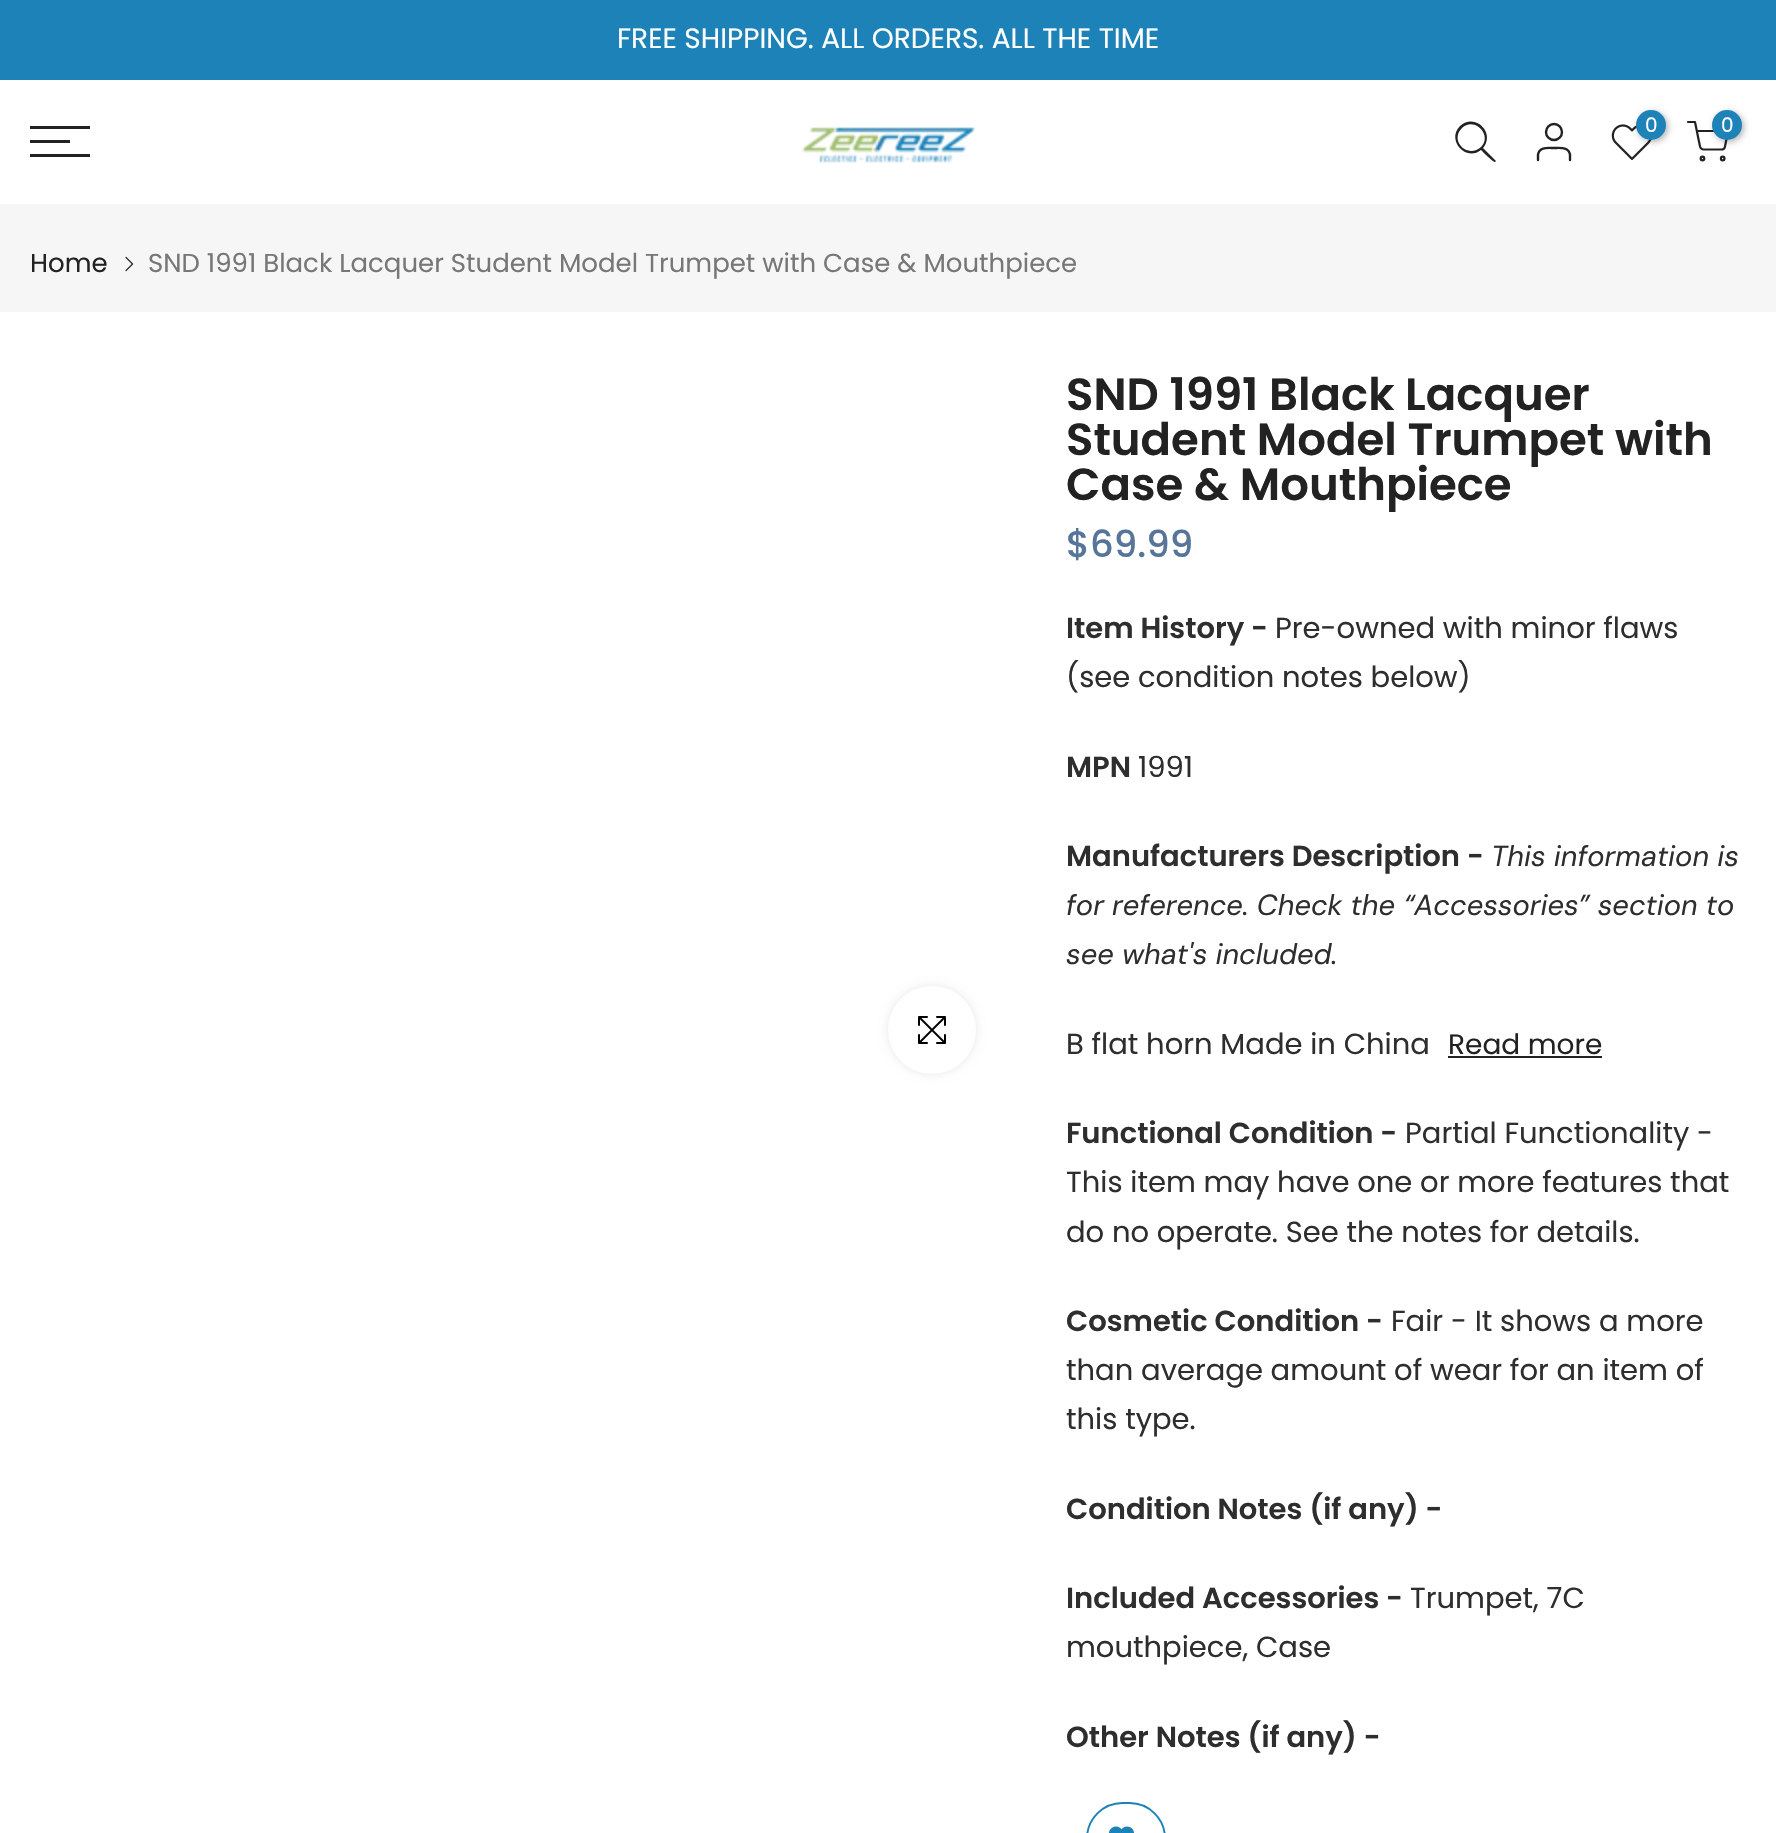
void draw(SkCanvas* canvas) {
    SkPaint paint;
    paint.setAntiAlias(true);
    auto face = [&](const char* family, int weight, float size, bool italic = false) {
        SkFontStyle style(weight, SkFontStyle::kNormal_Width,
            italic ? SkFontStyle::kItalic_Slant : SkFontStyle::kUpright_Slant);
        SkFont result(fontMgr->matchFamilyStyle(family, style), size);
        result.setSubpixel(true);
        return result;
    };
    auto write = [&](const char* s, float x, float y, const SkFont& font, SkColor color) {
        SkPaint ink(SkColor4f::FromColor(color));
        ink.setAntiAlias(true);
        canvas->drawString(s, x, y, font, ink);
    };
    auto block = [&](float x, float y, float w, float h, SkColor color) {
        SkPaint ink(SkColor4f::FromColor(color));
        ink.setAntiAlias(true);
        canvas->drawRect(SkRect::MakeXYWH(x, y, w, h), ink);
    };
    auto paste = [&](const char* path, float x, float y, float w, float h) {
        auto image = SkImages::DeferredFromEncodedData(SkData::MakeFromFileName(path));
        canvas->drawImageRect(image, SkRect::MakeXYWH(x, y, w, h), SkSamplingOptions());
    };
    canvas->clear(SK_ColorWHITE);
    block(0, 0, 1776, 80, SkColorSetRGB(29, 130, 184));
    auto kFont1 = face("Poppins", 400, 28);
    write("FREE SHIPPING. ALL ORDERS. ALL THE TIME", 617, 48, kFont1, SK_ColorWHITE);
    paint.setColor(SkColorSetRGB(34, 34, 34));
    canvas->drawPath(SkPathBuilder(SkPathFillType::kEvenOdd).moveTo(1481, 147).cubicTo(1468, 159, 1449, 141, 1462, 128).cubicTo(1474, 116, 1493, 135, 1481, 147).close().moveTo(1481, 150).cubicTo(1466, 162, 1446, 140, 1460, 126).cubicTo(1475, 112, 1496, 133, 1483, 148).lineTo(1496, 161).lineTo(1495, 162).cubicTo(1494, 163, 1483, 152, 1481, 150).close().detach(), paint);
    paint.setStyle(SkPaint::kStroke_Style);
    paint.setStrokeWidth(2.4f);
    canvas->drawCircle(1554, 132, 8, paint);
    paint.setStrokeCap(SkPaint::kRound_Cap);
    paint.setStrokeJoin(SkPaint::kRound_Join);
    canvas->drawPath(SkPathBuilder().moveTo(1570, 160).lineTo(1570, 154.5f).cubicTo(1568.5f, 146.5f, 1560, 148, 1554, 148).cubicTo(1548, 148, 1539.5f, 146.5f, 1538, 154.5f).lineTo(1538, 160).detach(), paint);
    paste("pic1.png", 1611, 124, 41, 36);
    paint.setStyle(SkPaint::kFill_Style);
    paint.setColor(SkColorSetARGB(77, 0, 0, 0));
    paint.setMaskFilter(SkMaskFilter::MakeBlur(kNormal_SkBlurStyle, 3));
    canvas->drawRoundRect(SkRect::MakeXYWH(1638, 112, 30, 30), 15, 15, paint);
    paint.setMaskFilter(nullptr);
    paint.setColor(SkColorSetRGB(29, 130, 184));
    canvas->drawCircle(1651, 125, 15, paint);
    auto kFont2 = face("Poppins", 400, 20);
    write("0", 1645, 132, kFont2, SK_ColorWHITE);
    paint.setStyle(SkPaint::kStroke_Style);
    paint.setStrokeWidth(2.2f);
    paint.setColor(SkColorSetRGB(34, 34, 34));
    canvas->drawPath(SkPathBuilder().moveTo(1688, 122).lineTo(1695, 122).lineTo(1700, 146.5f).cubicTo(1700.5f, 148, 1702, 149.5f, 1703.5f, 149.5f).lineTo(1721.5f, 149.5f).cubicTo(1723.5f, 149.5f, 1725, 148, 1725, 146.5f).lineTo(1728, 131).lineTo(1697, 131).detach(), paint);
    paint.setStyle(SkPaint::kFill_Style);
    paint.setColor(SkColorSetARGB(77, 0, 0, 0));
    paint.setMaskFilter(SkMaskFilter::MakeBlur(kNormal_SkBlurStyle, 3));
    canvas->drawRoundRect(SkRect::MakeXYWH(1714, 112, 30, 30), 15, 15, paint);
    paint.setMaskFilter(nullptr);
    paint.setColor(SkColorSetRGB(29, 130, 184));
    canvas->drawCircle(1727, 125, 15, paint);
    write("0", 1721, 132, kFont2, SK_ColorWHITE);
    paint.setStyle(SkPaint::kStroke_Style);
    paint.setStrokeCap(SkPaint::kButt_Cap);
    paint.setStrokeJoin(SkPaint::kMiter_Join);
    paint.setColor(SkColorSetRGB(34, 34, 34));
    canvas->drawCircle(1702.5f, 158.5f, 1.8f, paint);
    canvas->drawCircle(1722.7f, 158.5f, 1.8f, paint);
    block(30, 126, 60, 3, SkColorSetRGB(34, 34, 34));
    block(30, 140, 40, 3, SkColorSetRGB(34, 34, 34));
    block(30, 154, 60, 3, SkColorSetRGB(34, 34, 34));
    paste("pic2.png", 801, 127, 174, 36);
    block(0, 204, 1776, 108, SkColorSetRGB(246, 246, 246));
    auto kFont3 = face("Poppins", 400, 26);
    write("Home", 30, 272, kFont3, SkColorSetRGB(34, 34, 34));
    paste("pic3.png", 125, 256, 9, 16);
    write("SND 1991 Black Lacquer Student Model Trumpet with Case & Mouthpiece", 148, 272, kFont3, SkColorSetRGB(119, 119, 119));
    paint.setStyle(SkPaint::kFill_Style);
    paint.setColor(SkColorSetARGB(23, 0, 0, 0));
    paint.setMaskFilter(SkMaskFilter::MakeBlur(kNormal_SkBlurStyle, 5));
    canvas->drawRoundRect(SkRect::MakeXYWH(888, 986, 88, 88), 44, 44, paint);
    paint.setMaskFilter(nullptr);
    paint.setColor(SK_ColorWHITE);
    canvas->drawCircle(932, 1030, 44, paint);
    paste("pic4.png", 918, 1016, 28, 28);
    auto kFont4 = face("Poppins", 600, 45);
    write("SND 1991 Black Lacquer", 1066, 410, kFont4, SkColorSetRGB(34, 34, 34));
    write("Student Model Trumpet with", 1066, 455, kFont4, SkColorSetRGB(34, 34, 34));
    write("Case & Mouthpiece", 1066, 500, kFont4, SkColorSetRGB(34, 34, 34));
    auto kFont5 = face("Poppins", 500, 37);
    write("$69.99", 1066, 557, kFont5, SkColorSetRGB(86, 117, 153));
    auto kFont6 = face("Poppins", 600, 29);
    write("Item History -", 1066, 638, kFont6, SkColorSetRGB(46, 46, 46));
    auto kFont7 = face("Poppins", 400, 29);
    write("Pre-owned with minor flaws", 1275, 638, kFont7, SkColorSetRGB(46, 46, 46));
    write("(see condition notes below)", 1066, 687, kFont7, SkColorSetRGB(46, 46, 46));
    write("MPN", 1066, 777, kFont6, SkColorSetRGB(46, 46, 46));
    write("1991", 1138, 777, kFont7, SkColorSetRGB(46, 46, 46));
    write("Manufacturers Description -", 1066, 866, kFont6, SkColorSetRGB(46, 46, 46));
    auto kFont8 = face("DM Sans", 400, 29, true);
    write("This information is", 1491, 866, kFont8, SkColorSetRGB(46, 46, 46));
    write("for reference. Check the “Accessories” section to", 1066, 915, kFont8, SkColorSetRGB(46, 46, 46));
    write("see what's included.", 1066, 964, kFont8, SkColorSetRGB(46, 46, 46));
    write("B flat horn Made in China", 1066, 1054, kFont7, SkColorSetRGB(46, 46, 46));
    write("Read more", 1448, 1054, kFont1, SkColorSetRGB(34, 34, 34));
    block(1448, 1056, 154, 2, SkColorSetRGB(34, 34, 34));
    write("Functional Condition -", 1066, 1143, kFont6, SkColorSetRGB(46, 46, 46));
    write("Partial Functionality -", 1405, 1143, kFont7, SkColorSetRGB(46, 46, 46));
    write("This item may have one or more features that", 1066, 1192, kFont7, SkColorSetRGB(46, 46, 46));
    write("do no operate. See the notes for details.", 1066, 1242, kFont7, SkColorSetRGB(46, 46, 46));
    write("Cosmetic Condition -", 1066, 1331, kFont6, SkColorSetRGB(46, 46, 46));
    write("Fair - It shows a more", 1391, 1331, kFont7, SkColorSetRGB(46, 46, 46));
    write("than average amount of wear for an item of", 1066, 1380, kFont7, SkColorSetRGB(46, 46, 46));
    write("this type.", 1066, 1429, kFont7, SkColorSetRGB(46, 46, 46));
    write("Condition Notes (if any) -", 1066, 1519, kFont6, SkColorSetRGB(46, 46, 46));
    write("Included Accessories -", 1066, 1608, kFont6, SkColorSetRGB(46, 46, 46));
    write("Trumpet, 7C", 1410, 1608, kFont7, SkColorSetRGB(46, 46, 46));
    write("mouthpiece, Case", 1066, 1657, kFont7, SkColorSetRGB(46, 46, 46));
    write("Other Notes (if any) -", 1066, 1747, kFont6, SkColorSetRGB(46, 46, 46));
    paint.setStyle(SkPaint::kStroke_Style);
    paint.setStrokeWidth(2);
    paint.setColor(SkColorSetRGB(29, 130, 184));
    canvas->drawRoundRect(SkRect::MakeXYWH(1087, 1803, 78, 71), 39, 39, paint);
    paste("pic5.png", 1109, 1826, 25, 7);
}
